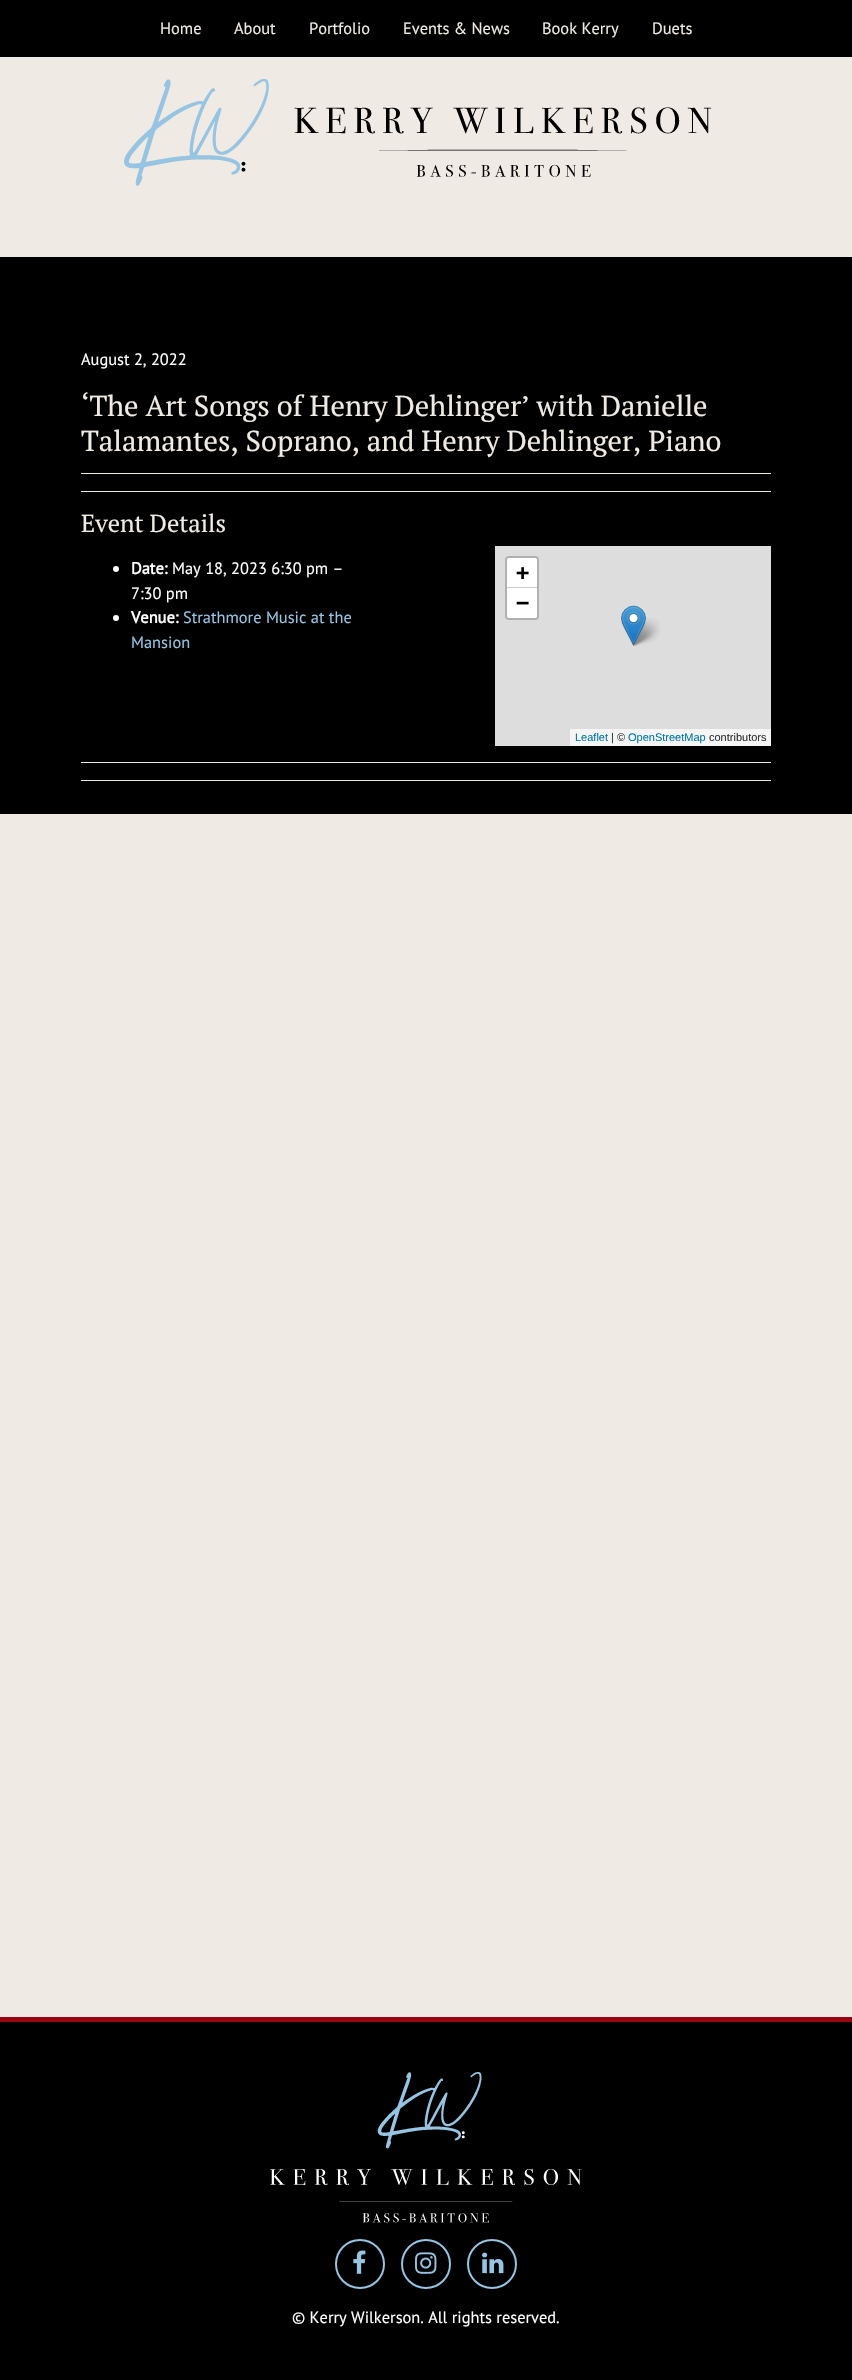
void draw(SkCanvas* canvas) {
    SkPaint paint;
    paint.setAntiAlias(true);
    auto face = [&](const char* family, int weight, float size, bool italic = false) {
        SkFontStyle style(weight, SkFontStyle::kNormal_Width,
            italic ? SkFontStyle::kItalic_Slant : SkFontStyle::kUpright_Slant);
        SkFont result(fontMgr->matchFamilyStyle(family, style), size);
        result.setSubpixel(true);
        return result;
    };
    auto write = [&](const char* s, float x, float y, const SkFont& font, SkColor color) {
        SkPaint ink(SkColor4f::FromColor(color));
        ink.setAntiAlias(true);
        canvas->drawString(s, x, y, font, ink);
    };
    auto block = [&](float x, float y, float w, float h, SkColor color) {
        SkPaint ink(SkColor4f::FromColor(color));
        ink.setAntiAlias(true);
        canvas->drawRect(SkRect::MakeXYWH(x, y, w, h), ink);
    };
    auto paste = [&](const char* path, float x, float y, float w, float h) {
        auto image = SkImages::DeferredFromEncodedData(SkData::MakeFromFileName(path));
        canvas->drawImageRect(image, SkRect::MakeXYWH(x, y, w, h), SkSamplingOptions());
    };
    canvas->clear(SkColorSetRGB(239, 234, 227));
    block(0, 0, 852, 57, SK_ColorBLACK);
    auto kFont1 = face("PT Sans", 400, 16.4f);
    write("Home", 160, 34, kFont1, SkColorSetRGB(239, 234, 227));
    write("About", 234, 34, kFont1, SkColorSetRGB(239, 234, 227));
    write("Portfolio", 309, 34, kFont1, SkColorSetRGB(239, 234, 227));
    write("Events & News", 403, 34, kFont1, SkColorSetRGB(239, 234, 227));
    write("Book Kerry", 542, 34, kFont1, SkColorSetRGB(239, 234, 227));
    write("Duets", 652, 34, kFont1, SkColorSetRGB(239, 234, 227));
    paste("pic1.png", 124, 79, 588, 107);
    block(0, 257, 852, 557, SK_ColorBLACK);
    write("August 2, 2022", 81, 365, kFont1, SK_ColorWHITE);
    auto kFont2 = face("PT Serif", 400, 28.75f);
    write("‘The Art Songs of Henry Dehlinger’ with Danielle", 81, 416, kFont2, SkColorSetRGB(239, 234, 227));
    write("Talamantes, Soprano, and Henry Dehlinger, Piano", 81, 451, kFont2, SkColorSetRGB(239, 234, 227));
    block(81, 473, 690, 1, SkColorSetRGB(239, 234, 227));
    block(81, 491, 690, 1, SkColorSetRGB(239, 234, 227));
    auto kFont3 = face("PT Serif", 400, 24.5f);
    write("Event Details", 81, 532, kFont3, SkColorSetRGB(239, 234, 227));
    paint.setColor(SK_ColorWHITE);
    canvas->drawCircle(116, 569, 3, paint);
    auto kFont4 = face("PT Sans", 700, 16.4f);
    write("Date:", 131, 574, kFont4, SK_ColorWHITE);
    write("May 18, 2023 6:30 pm –", 172, 574, kFont1, SK_ColorWHITE);
    write("7:30 pm", 131, 599, kFont1, SK_ColorWHITE);
    canvas->drawCircle(116, 618, 3, paint);
    write("Venue:", 131, 623, kFont4, SK_ColorWHITE);
    write("Strathmore Music at the", 183, 623, kFont1, SkColorSetRGB(150, 196, 226));
    write("Mansion", 131, 648, kFont1, SkColorSetRGB(150, 196, 226));
    block(495, 546, 276, 200, SkColorSetRGB(221, 221, 221));
    paint.setStyle(SkPaint::kStroke_Style);
    paint.setStrokeWidth(2);
    paint.setColor(SkColorSetRGB(177, 177, 177));
    canvas->drawRoundRect(SkRect::MakeXYWH(506, 557, 32, 62), 3, 3, paint);
    paint.setStyle(SkPaint::kFill_Style);
    paint.setColor(SK_ColorWHITE);
    canvas->drawPath(SkPathBuilder().moveTo(509, 558).lineTo(535, 558).cubicTo(536, 558, 537, 559, 537, 560).lineTo(537, 588).lineTo(507, 588).lineTo(507, 560).cubicTo(507, 559, 508, 558, 509, 558).close().detach(), paint);
    block(507, 587, 30, 1, SkColorSetRGB(204, 204, 204));
    auto kFont5 = face("DejaVu Sans Mono", 700, 22);
    write("+", 516, 580, kFont5, SK_ColorBLACK);
    canvas->drawPath(SkPathBuilder().moveTo(507, 588).lineTo(537, 588).lineTo(537, 616).cubicTo(537, 617, 536, 618, 535, 618).lineTo(509, 618).cubicTo(508, 618, 507, 617, 507, 616).close().detach(), paint);
    write("−", 516, 610, kFont5, SK_ColorBLACK);
    block(570, 729, 201, 17, SkColorSetRGB(245, 245, 245));
    auto kFont6 = face("Liberation Sans", 400, 11);
    write("Leaflet", 575, 741, kFont6, SkColorSetRGB(0, 120, 168));
    write("| ©", 611, 741, kFont6, SkColorSetRGB(51, 51, 51));
    write("OpenStreetMap", 628, 741, kFont6, SkColorSetRGB(0, 120, 168));
    write("contributors", 709, 741, kFont6, SkColorSetRGB(51, 51, 51));
    paste("pic3.png", 631, 618, 29, 28);
    paste("pic2.png", 621, 605, 25, 41);
    block(81, 762, 690, 1, SkColorSetRGB(239, 234, 227));
    block(81, 780, 690, 1, SkColorSetRGB(239, 234, 227));
    block(0, 2022, 852, 358, SK_ColorBLACK);
    block(0, 2017, 852, 5, SkColorSetRGB(153, 5, 17));
    paste("pic4.png", 270, 2072, 312, 151);
    paint.setStyle(SkPaint::kStroke_Style);
    paint.setColor(SkColorSetRGB(150, 196, 226));
    canvas->drawCircle(360, 2264, 24, paint);
    paste("pic5.png", 353, 2250, 13, 24);
    canvas->drawCircle(426, 2264, 24, paint);
    paste("pic6.png", 415, 2252, 22, 22);
    canvas->drawCircle(492, 2264, 24, paint);
    paste("pic7.png", 482, 2252, 22, 22);
    write("© Kerry Wilkerson. All rights reserved.", 292, 2323, kFont1, SK_ColorWHITE);
}
